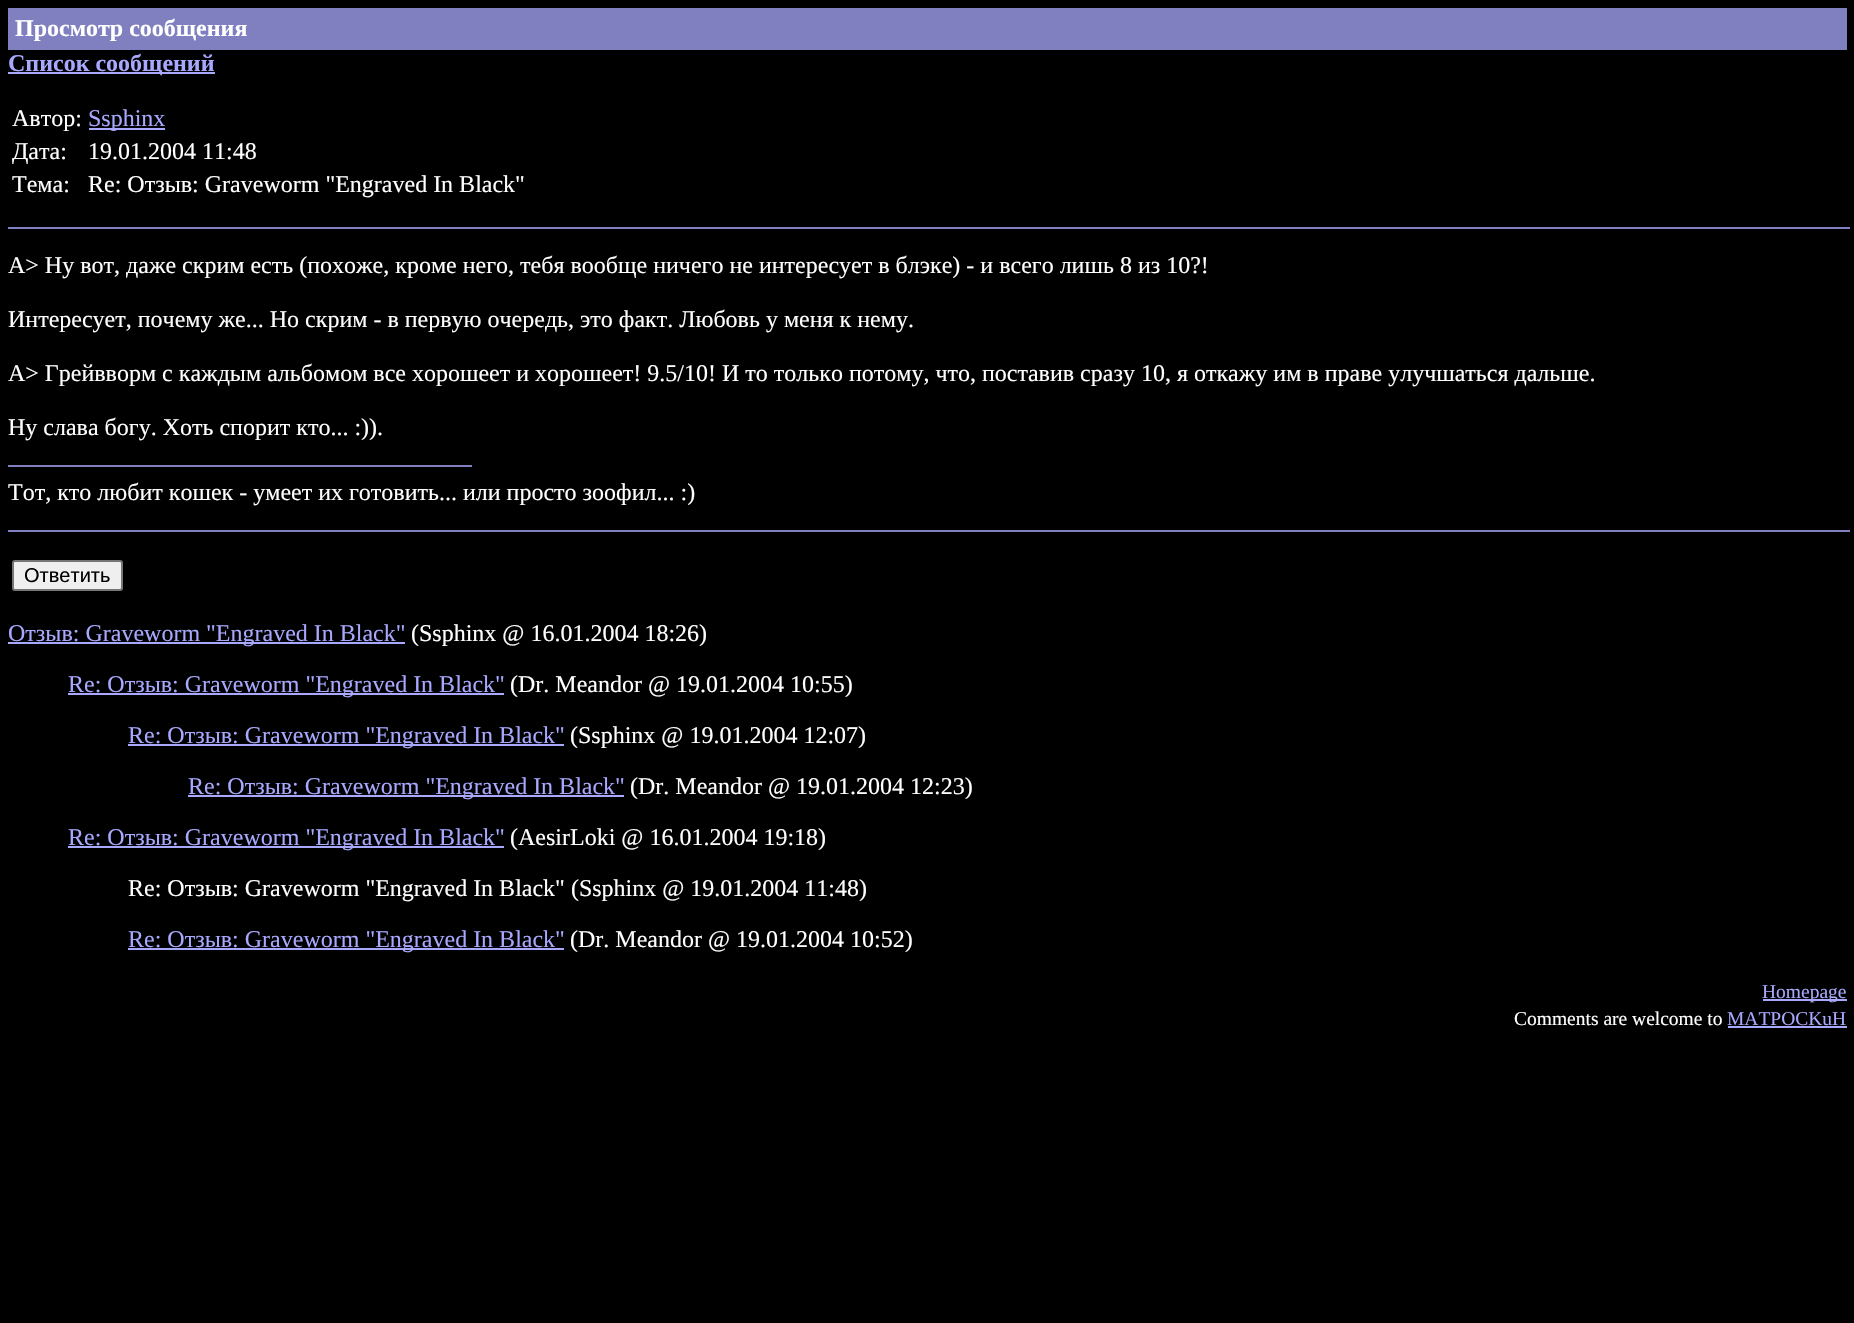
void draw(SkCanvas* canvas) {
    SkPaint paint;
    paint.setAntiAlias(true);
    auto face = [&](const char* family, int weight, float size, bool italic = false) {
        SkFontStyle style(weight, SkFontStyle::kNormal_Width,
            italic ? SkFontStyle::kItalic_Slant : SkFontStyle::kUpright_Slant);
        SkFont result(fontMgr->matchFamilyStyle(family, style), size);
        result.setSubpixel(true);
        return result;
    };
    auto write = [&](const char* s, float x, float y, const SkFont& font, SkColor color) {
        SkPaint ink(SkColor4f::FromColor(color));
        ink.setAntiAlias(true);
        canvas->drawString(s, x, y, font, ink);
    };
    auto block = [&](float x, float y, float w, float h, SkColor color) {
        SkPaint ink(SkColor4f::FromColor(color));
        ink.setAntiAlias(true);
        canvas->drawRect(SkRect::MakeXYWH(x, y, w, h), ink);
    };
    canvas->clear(SK_ColorBLACK);
    block(8, 8, 1839, 42, SkColorSetRGB(128, 128, 192));
    auto kFont1 = face("Liberation Serif", 700, 24);
    write("Просмотр сообщения", 15, 36, kFont1, SK_ColorWHITE);
    block(8, 72, 207, 2, SkColorSetRGB(168, 168, 255));
    write("Список сообщений", 8, 71, kFont1, SkColorSetRGB(168, 168, 255));
    auto kFont2 = face("Liberation Serif", 400, 24);
    write("Автор:", 12, 126, kFont2, SK_ColorWHITE);
    block(89, 128, 76, 2, SkColorSetRGB(168, 168, 255));
    write("Ssphinx", 88, 126, kFont2, SkColorSetRGB(168, 168, 255));
    write("Дата:", 12, 159, kFont2, SK_ColorWHITE);
    write("19.01.2004 11:48", 88, 159, kFont2, SK_ColorWHITE);
    write("Тема:", 12, 192, kFont2, SK_ColorWHITE);
    write("Re: Отзыв: Graveworm \"Engraved In Black\"", 88, 192, kFont2, SK_ColorWHITE);
    block(8, 227, 1842, 2, SkColorSetRGB(128, 128, 192));
    write("A> Ну вот, даже скрим есть (похоже, кроме него, тебя вообще ничего не интересует в блэке) - и всего лишь 8 из 10?!", 8, 273, kFont2, SK_ColorWHITE);
    write("Интересует, почему же... Но скрим - в первую очередь, это факт. Любовь у меня к нему.", 8, 327, kFont2, SK_ColorWHITE);
    write("A> Грейвворм с каждым альбомом все хорошеет и хорошеет! 9.5/10! И то только потому, что, поставив сразу 10, я откажу им в праве улучшаться дальше.", 8, 381, kFont2, SK_ColorWHITE);
    write("Ну слава богу. Хоть спорит кто... :)).", 8, 435, kFont2, SK_ColorWHITE);
    block(8, 465, 464, 2, SkColorSetRGB(128, 128, 192));
    write("Тот, кто любит кошек - умеет их готовить... или просто зоофил... :)", 8, 500, kFont2, SK_ColorWHITE);
    block(8, 530, 1842, 2, SkColorSetRGB(128, 128, 192));
    paint.setColor(SkColorSetRGB(239, 239, 239));
    canvas->drawRoundRect(SkRect::MakeXYWH(13, 561, 109, 29), 2, 2, paint);
    paint.setStyle(SkPaint::kStroke_Style);
    paint.setStrokeWidth(2);
    paint.setColor(SkColorSetRGB(118, 118, 118));
    canvas->drawRoundRect(SkRect::MakeXYWH(13, 561, 109, 29), 2, 2, paint);
    auto kFont3 = face("Liberation Sans", 400, 20);
    write("Ответить", 24, 582, kFont3, SK_ColorBLACK);
    block(8, 642, 397, 2, SkColorSetRGB(168, 168, 255));
    write("Отзыв: Graveworm \"Engraved In Black\"", 8, 641, kFont2, SkColorSetRGB(168, 168, 255));
    write("(Ssphinx @ 16.01.2004 18:26)", 411, 641, kFont2, SK_ColorWHITE);
    block(68, 693, 436, 2, SkColorSetRGB(168, 168, 255));
    write("Re: Отзыв: Graveworm \"Engraved In Black\"", 68, 692, kFont2, SkColorSetRGB(168, 168, 255));
    write("(Dr. Meandor @ 19.01.2004 10:55)", 510, 692, kFont2, SK_ColorWHITE);
    block(128, 744, 436, 2, SkColorSetRGB(168, 168, 255));
    write("Re: Отзыв: Graveworm \"Engraved In Black\"", 128, 743, kFont2, SkColorSetRGB(168, 168, 255));
    write("(Ssphinx @ 19.01.2004 12:07)", 570, 743, kFont2, SK_ColorWHITE);
    block(188, 795, 436, 2, SkColorSetRGB(168, 168, 255));
    write("Re: Отзыв: Graveworm \"Engraved In Black\"", 188, 794, kFont2, SkColorSetRGB(168, 168, 255));
    write("(Dr. Meandor @ 19.01.2004 12:23)", 630, 794, kFont2, SK_ColorWHITE);
    block(68, 846, 436, 2, SkColorSetRGB(168, 168, 255));
    write("Re: Отзыв: Graveworm \"Engraved In Black\"", 68, 845, kFont2, SkColorSetRGB(168, 168, 255));
    write("(AesirLoki @ 16.01.2004 19:18)", 510, 845, kFont2, SK_ColorWHITE);
    write("Re: Отзыв: Graveworm \"Engraved In Black\" (Ssphinx @ 19.01.2004 11:48)", 128, 896, kFont2, SK_ColorWHITE);
    block(128, 948, 436, 2, SkColorSetRGB(168, 168, 255));
    write("Re: Отзыв: Graveworm \"Engraved In Black\"", 128, 947, kFont2, SkColorSetRGB(168, 168, 255));
    write("(Dr. Meandor @ 19.01.2004 10:52)", 570, 947, kFont2, SK_ColorWHITE);
    block(1763, 999, 84, 2, SkColorSetRGB(168, 168, 255));
    auto kFont4 = face("Liberation Serif", 400, 19.5f);
    write("Homepage", 1762, 998, kFont4, SkColorSetRGB(168, 168, 255));
    write("Comments are welcome to", 1514, 1025, kFont4, SK_ColorWHITE);
    write("MATPOCKuH", 1727, 1025, kFont4, SkColorSetRGB(168, 168, 255));
    block(1728, 1026, 119, 2, SkColorSetRGB(168, 168, 255));
}
